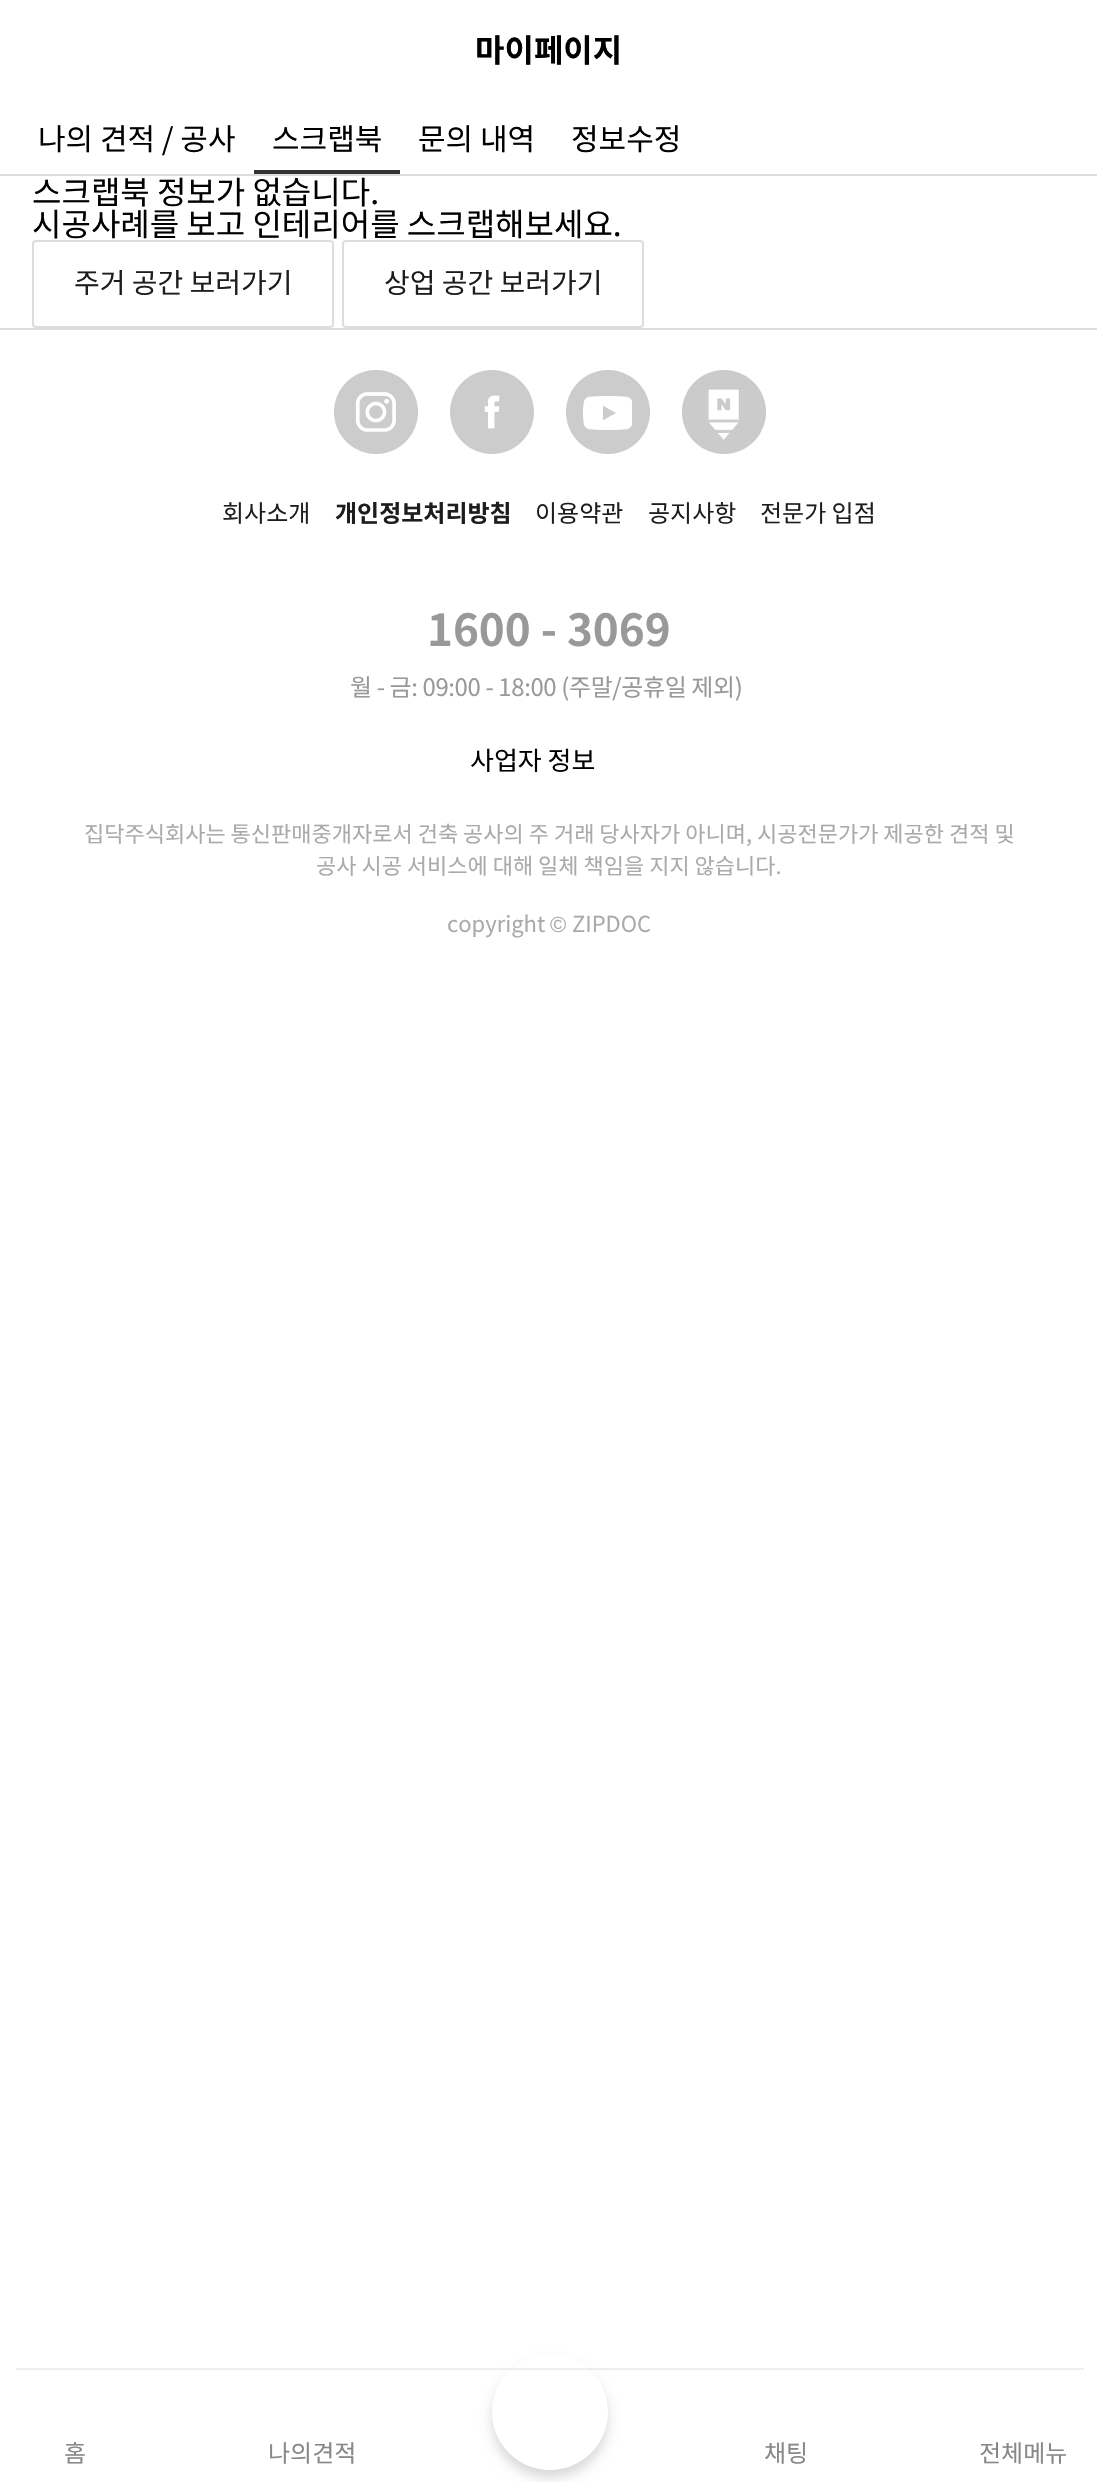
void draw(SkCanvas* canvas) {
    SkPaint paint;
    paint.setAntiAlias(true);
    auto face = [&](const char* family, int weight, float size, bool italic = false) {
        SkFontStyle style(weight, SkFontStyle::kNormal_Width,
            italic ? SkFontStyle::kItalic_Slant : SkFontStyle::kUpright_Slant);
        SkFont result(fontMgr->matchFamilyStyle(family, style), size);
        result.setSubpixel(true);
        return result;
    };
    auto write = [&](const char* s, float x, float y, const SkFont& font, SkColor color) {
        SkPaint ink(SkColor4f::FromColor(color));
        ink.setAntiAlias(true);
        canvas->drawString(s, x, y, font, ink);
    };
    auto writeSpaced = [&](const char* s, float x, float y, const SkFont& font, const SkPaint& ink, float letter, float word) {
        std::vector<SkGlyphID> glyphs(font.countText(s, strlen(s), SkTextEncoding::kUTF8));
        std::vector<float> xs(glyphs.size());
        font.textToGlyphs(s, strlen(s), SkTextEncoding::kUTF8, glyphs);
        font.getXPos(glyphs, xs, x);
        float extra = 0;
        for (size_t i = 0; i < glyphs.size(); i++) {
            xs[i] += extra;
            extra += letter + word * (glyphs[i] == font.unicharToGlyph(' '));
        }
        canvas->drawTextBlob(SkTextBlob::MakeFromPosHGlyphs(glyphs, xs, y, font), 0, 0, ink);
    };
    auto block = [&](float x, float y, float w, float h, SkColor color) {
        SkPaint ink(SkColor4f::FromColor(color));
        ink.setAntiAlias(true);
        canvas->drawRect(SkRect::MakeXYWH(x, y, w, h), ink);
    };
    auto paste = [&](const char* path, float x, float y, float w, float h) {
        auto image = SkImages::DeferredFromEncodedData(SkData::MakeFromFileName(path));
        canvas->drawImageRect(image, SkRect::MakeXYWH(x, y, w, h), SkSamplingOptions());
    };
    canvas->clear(SK_ColorWHITE);
    auto kFont1 = face("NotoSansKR", 700, 32);
    write("마이페이지", 475, 62, kFont1, SK_ColorBLACK);
    block(0, 174, 1097, 2, SkColorSetRGB(221, 221, 221));
    auto kFont2 = face("NotoSansKR", 400, 30);
    write("나의 견적 / 공사", 38, 150, kFont2, SK_ColorBLACK);
    write("스크랩북", 272, 150, kFont2, SK_ColorBLACK);
    block(254, 170, 146, 4, SkColorSetRGB(51, 51, 51));
    write("문의 내역", 418, 150, kFont2, SK_ColorBLACK);
    write("정보수정", 571, 150, kFont2, SK_ColorBLACK);
    auto kFont3 = face("NotoSansKR", 400, 32);
    write("스크랩북 정보가 없습니다.", 32, 204, kFont3, SK_ColorBLACK);
    write("시공사례를 보고 인테리어를 스크랩해보세요.", 32, 236, kFont3, SK_ColorBLACK);
    paint.setStyle(SkPaint::kStroke_Style);
    paint.setStrokeWidth(2);
    paint.setColor(SkColorSetRGB(221, 221, 221));
    canvas->drawRoundRect(SkRect::MakeXYWH(33, 241, 300, 86), 3, 3, paint);
    auto kFont4 = face("NotoSansKR", 400, 28);
    write("주거 공간 보러가기", 74, 293, kFont4, SkColorSetRGB(29, 29, 29));
    canvas->drawRoundRect(SkRect::MakeXYWH(343, 241, 300, 86), 3, 3, paint);
    write("상업 공간 보러가기", 384, 293, kFont4, SkColorSetRGB(29, 29, 29));
    block(0, 328, 1097, 2, SkColorSetRGB(221, 221, 221));
    paste("pic1.png", 334, 370, 84, 84);
    paste("pic2.png", 450, 370, 84, 84);
    paste("pic3.png", 566, 370, 84, 84);
    paste("pic4.png", 682, 370, 84, 84);
    auto kFont5 = face("NotoSansKR", 400, 24);
    write("회사소개", 222, 522, kFont5, SkColorSetRGB(29, 29, 29));
    auto kFont6 = face("NotoSansKR", 700, 24);
    write("개인정보처리방침", 335, 522, kFont6, SkColorSetRGB(29, 29, 29));
    write("이용약관", 535, 522, kFont5, SkColorSetRGB(29, 29, 29));
    write("공지사항", 648, 522, kFont5, SkColorSetRGB(29, 29, 29));
    write("전문가 입점", 760, 522, kFont5, SkColorSetRGB(29, 29, 29));
    auto kFont7 = face("NotoSansKR", 700, 44);
    write("1600 - 3069", 427, 646, kFont7, SkColorSetRGB(153, 153, 153));
    paint.setStyle(SkPaint::kFill_Style);
    paint.setColor(SkColorSetRGB(153, 153, 153));
    writeSpaced("월 - 금: 09:00 - 18:00 (주말/공휴일 제외)", 350, 696, kFont5, paint, -0.4f, 0);
    auto kFont8 = face("NotoSansKR", 400, 26);
    write("사업자 정보", 470, 770, kFont8, SK_ColorBLACK);
    auto kFont9 = face("NotoSansKR", 400, 22);
    write("집닥주식회사는 통신판매중개자로서 건축 공사의 주 거래 당사자가 아니며, 시공전문가가 제공한 견적 및", 84, 842, kFont9, SkColorSetRGB(170, 170, 170));
    write("공사 시공 서비스에 대해 일체 책임을 지지 않습니다.", 316, 874, kFont9, SkColorSetRGB(170, 170, 170));
    write("copyright", 447, 932, kFont9, SkColorSetRGB(170, 170, 170));
    auto kFont10 = face("Liberation Sans", 400, 22);
    write("©", 550, 932, kFont10, SkColorSetRGB(170, 170, 170));
    write("ZIPDOC", 572, 932, kFont9, SkColorSetRGB(170, 170, 170));
    block(16, 2368, 1068, 2, SkColorSetRGB(238, 238, 238));
    write("홈", 64, 2462, kFont5, SkColorSetRGB(136, 136, 136));
    write("나의견적", 268, 2462, kFont5, SkColorSetRGB(136, 136, 136));
    canvas->save();
    canvas->clipPath(SkPathBuilder(SkPathFillType::kEvenOdd).moveTo(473, 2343).lineTo(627, 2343).lineTo(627, 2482).lineTo(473, 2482).close().moveTo(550, 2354).cubicTo(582, 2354, 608, 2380, 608, 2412).cubicTo(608, 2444, 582, 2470, 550, 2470).cubicTo(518, 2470, 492, 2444, 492, 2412).cubicTo(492, 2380, 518, 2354, 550, 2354).close().detach(), true);
    paint.setColor(SkColorSetARGB(38, 0, 0, 0));
    paint.setMaskFilter(SkMaskFilter::MakeBlur(kNormal_SkBlurStyle, 6));
    canvas->drawRoundRect(SkRect::MakeXYWH(492, 2362, 116, 116), 58, 58, paint);
    paint.setMaskFilter(nullptr);
    canvas->restore();
    write("채팅", 764, 2462, kFont5, SkColorSetRGB(136, 136, 136));
    write("전체메뉴", 979, 2462, kFont5, SkColorSetRGB(136, 136, 136));
}
